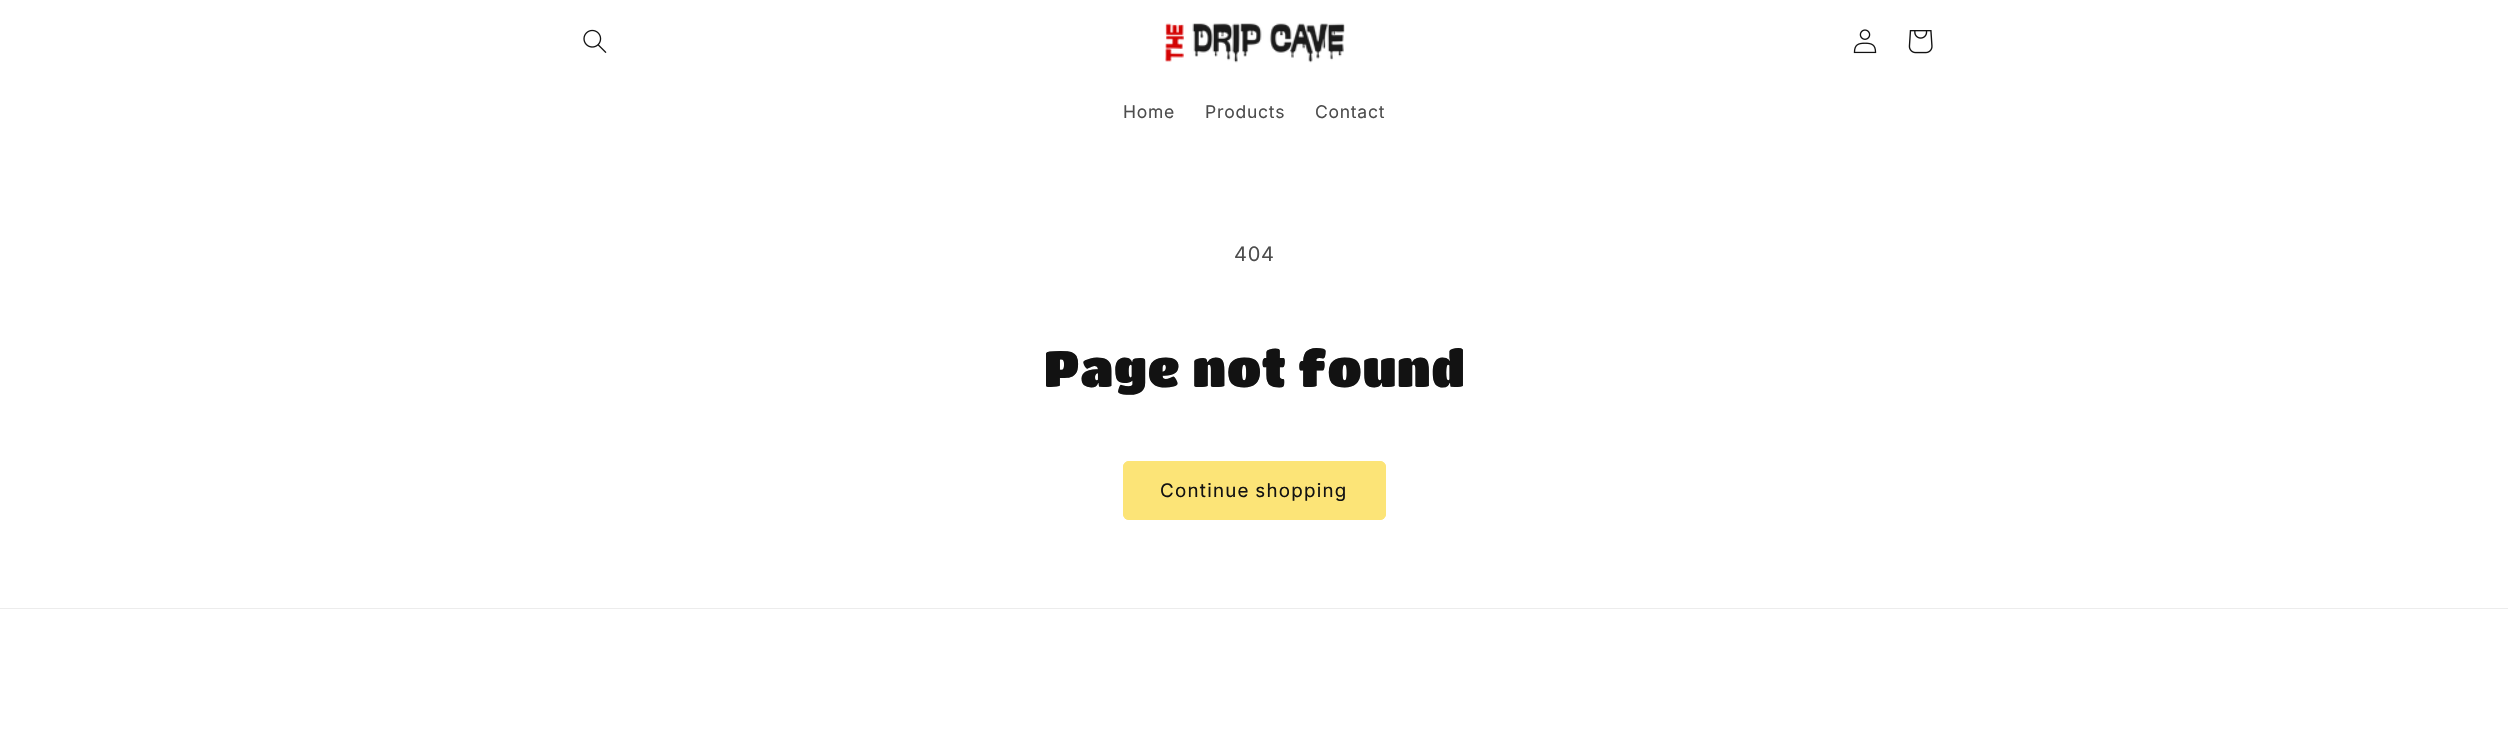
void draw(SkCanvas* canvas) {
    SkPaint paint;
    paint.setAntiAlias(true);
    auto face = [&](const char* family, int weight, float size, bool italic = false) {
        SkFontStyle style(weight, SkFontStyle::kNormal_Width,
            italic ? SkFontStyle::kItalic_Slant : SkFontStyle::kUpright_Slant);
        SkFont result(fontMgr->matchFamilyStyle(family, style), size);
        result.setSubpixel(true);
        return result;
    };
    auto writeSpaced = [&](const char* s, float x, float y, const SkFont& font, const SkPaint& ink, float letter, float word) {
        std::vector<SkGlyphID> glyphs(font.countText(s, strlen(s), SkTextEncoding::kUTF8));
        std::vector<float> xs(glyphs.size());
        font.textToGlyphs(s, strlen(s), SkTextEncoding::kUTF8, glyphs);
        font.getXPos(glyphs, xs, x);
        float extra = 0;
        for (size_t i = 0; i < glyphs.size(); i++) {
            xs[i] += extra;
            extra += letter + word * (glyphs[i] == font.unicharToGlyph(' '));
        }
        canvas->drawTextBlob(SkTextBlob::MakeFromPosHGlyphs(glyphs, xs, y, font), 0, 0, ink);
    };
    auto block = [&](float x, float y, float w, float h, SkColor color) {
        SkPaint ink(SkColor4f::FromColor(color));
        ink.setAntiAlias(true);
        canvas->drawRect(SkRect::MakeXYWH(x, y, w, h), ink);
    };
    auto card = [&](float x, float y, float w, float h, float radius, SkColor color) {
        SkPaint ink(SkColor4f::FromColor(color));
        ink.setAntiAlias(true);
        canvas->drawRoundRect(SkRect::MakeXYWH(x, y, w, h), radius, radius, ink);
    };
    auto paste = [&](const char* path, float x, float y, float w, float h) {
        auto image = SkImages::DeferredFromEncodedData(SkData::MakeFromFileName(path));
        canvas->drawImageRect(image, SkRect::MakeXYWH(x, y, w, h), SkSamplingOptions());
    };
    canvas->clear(SK_ColorWHITE);
    paste("pic1.png", 583, 29, 24, 24);
    paste("pic2.png", 1165, 23, 180, 40);
    paste("pic3.png", 1853, 29, 24, 25);
    paste("pic4.png", 1908, 30, 25, 24);
    auto kFont1 = face("Inter", 400, 17.5f);
    paint.setColor(SkColorSetRGB(77, 77, 77));
    writeSpaced("Home", 1123, 118, kFont1, paint, 0.75f, 0);
    writeSpaced("Products", 1205, 118, kFont1, paint, 0.75f, 0);
    writeSpaced("Contact", 1315, 118, kFont1, paint, 0.75f, 0);
    auto kFont2 = face("Inter", 400, 20);
    writeSpaced("404", 1234, 261, kFont2, paint, 0.75f, 0);
    auto kFont3 = face("Titan One", 400, 50);
    paint.setColor(SkColorSetRGB(18, 18, 18));
    writeSpaced("Page not found", 1044, 387, kFont3, paint, 0.75f, 0);
    card(1123, 461, 263, 59, 6, SkColorSetRGB(252, 228, 119));
    paint.setStyle(SkPaint::kStroke_Style);
    paint.setStrokeWidth(1);
    paint.setColor(SkColorSetRGB(252, 228, 119));
    canvas->drawRoundRect(SkRect::MakeXYWH(1123.5f, 461.5f, 262, 58), 5.5f, 5.5f, paint);
    auto kFont4 = face("Inter", 400, 18.75f);
    paint.setStyle(SkPaint::kFill_Style);
    paint.setColor(SkColorSetRGB(18, 18, 18));
    writeSpaced("Continue shopping", 1160, 497, kFont4, paint, 1.25f, -1);
    block(0, 608, 2508, 1, SkColorSetRGB(236, 236, 236));
}
